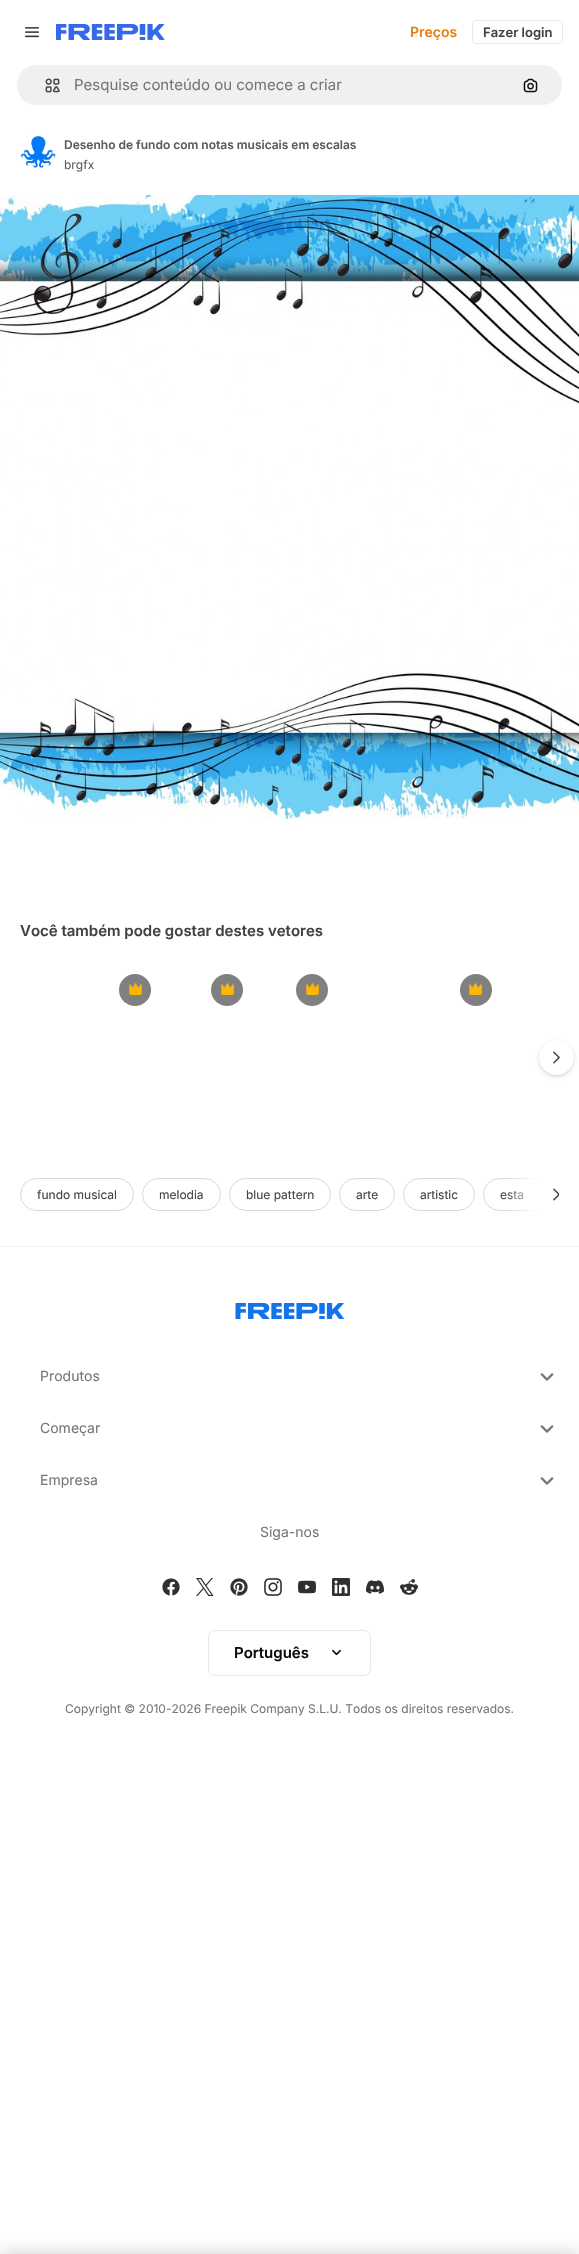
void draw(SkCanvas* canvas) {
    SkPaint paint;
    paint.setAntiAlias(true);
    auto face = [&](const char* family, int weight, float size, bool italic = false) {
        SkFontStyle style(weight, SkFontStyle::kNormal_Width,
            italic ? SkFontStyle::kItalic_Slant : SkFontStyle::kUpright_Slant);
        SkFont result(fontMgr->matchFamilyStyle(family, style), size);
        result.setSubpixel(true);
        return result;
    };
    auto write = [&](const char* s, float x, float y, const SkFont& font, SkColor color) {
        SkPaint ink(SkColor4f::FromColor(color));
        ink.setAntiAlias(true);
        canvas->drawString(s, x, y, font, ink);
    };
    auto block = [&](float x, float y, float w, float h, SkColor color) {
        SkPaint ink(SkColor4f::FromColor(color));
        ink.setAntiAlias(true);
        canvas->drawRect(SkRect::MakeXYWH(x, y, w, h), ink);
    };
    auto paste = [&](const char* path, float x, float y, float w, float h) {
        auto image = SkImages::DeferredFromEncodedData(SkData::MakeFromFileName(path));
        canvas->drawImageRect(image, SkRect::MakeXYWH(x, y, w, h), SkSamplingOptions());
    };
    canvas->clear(SK_ColorWHITE);
    paste("pic1.png", 25, 27, 14, 11);
    paste("pic2.png", 56, 24, 109, 16);
    auto kFont1 = face("Inter", 600, 14);
    write("Preços", 410, 37, kFont1, SkColorSetRGB(234, 126, 17));
    paint.setStyle(SkPaint::kStroke_Style);
    paint.setStrokeWidth(1);
    paint.setColor(SkColorSetRGB(231, 231, 231));
    canvas->drawRoundRect(SkRect::MakeXYWH(472.5f, 20.5f, 90, 23), 3.5f, 3.5f, paint);
    auto kFont2 = face("Inter", 600, 13);
    write("Fazer login", 483, 37, kFont2, SkColorSetRGB(66, 66, 66));
    paint.setStyle(SkPaint::kFill_Style);
    paint.setColor(SkColorSetRGB(240, 240, 240));
    canvas->drawRoundRect(SkRect::MakeXYWH(16.5f, 64.5f, 546, 41), 20.5f, 20.5f, paint);
    paint.setStyle(SkPaint::kStroke_Style);
    paint.setColor(SK_ColorWHITE);
    canvas->drawRoundRect(SkRect::MakeXYWH(16.5f, 64.5f, 546, 41), 20.5f, 20.5f, paint);
    paste("pic3.png", 45, 78, 15, 15);
    auto kFont3 = face("Inter", 400, 15);
    write("Pesquise conteúdo ou comece a criar", 74, 90, kFont3, SkColorSetRGB(119, 119, 119));
    paste("pic4.png", 523, 78, 15, 15);
    paste("pic5.png", 20, 134, 36, 36);
    auto kFont4 = face("Inter", 600, 12);
    write("Desenho de fundo com notas musicais em escalas", 64, 149, kFont4, SkColorSetRGB(92, 92, 92));
    auto kFont5 = face("Inter", 400, 12);
    write("brgfx", 64, 169, kFont5, SkColorSetRGB(92, 92, 92));
    paste("pic6.png", 0, 195, 579, 624);
    auto kFont6 = face("Inter", 600, 15);
    write("Você também pode gostar destes vetores", 20, 936, kFont6, SkColorSetRGB(66, 66, 66));
    paint.setStyle(SkPaint::kFill_Style);
    paint.setColor(SkColorSetRGB(128, 128, 128));
    canvas->drawCircle(135, 990, 16, paint);
    paste("pic7.png", 129, 983, 13, 12);
    canvas->drawCircle(227, 990, 16, paint);
    paste("pic7.png", 221, 983, 13, 12);
    canvas->drawCircle(312, 990, 16, paint);
    paste("pic7.png", 306, 983, 13, 12);
    canvas->drawCircle(476, 990, 16, paint);
    paste("pic7.png", 469, 983, 13, 12);
    paint.setColor(SkColorSetARGB(38, 55, 73, 87));
    paint.setMaskFilter(SkMaskFilter::MakeBlur(kNormal_SkBlurStyle, 2.5f));
    canvas->drawRoundRect(SkRect::MakeXYWH(539, 1042, 35, 35), 17.5f, 17.5f, paint);
    paint.setMaskFilter(nullptr);
    paint.setColor(SkColorSetARGB(26, 55, 73, 87));
    paint.setMaskFilter(SkMaskFilter::MakeBlur(kNormal_SkBlurStyle, 1));
    canvas->drawRoundRect(SkRect::MakeXYWH(539, 1041, 35, 35), 17.5f, 17.5f, paint);
    paint.setMaskFilter(nullptr);
    paint.setColor(SK_ColorWHITE);
    canvas->drawCircle(556.5f, 1057.5f, 17.5f, paint);
    paste("pic8.png", 553, 1051, 7, 13);
    paint.setStyle(SkPaint::kStroke_Style);
    paint.setColor(SkColorSetRGB(216, 216, 216));
    canvas->drawRoundRect(SkRect::MakeXYWH(20.5f, 1178.5f, 113, 32), 16, 16, paint);
    write("fundo musical", 37, 1199, kFont5, SkColorSetRGB(66, 66, 66));
    canvas->drawRoundRect(SkRect::MakeXYWH(142.5f, 1178.5f, 78, 32), 16, 16, paint);
    write("melodia", 159, 1199, kFont5, SkColorSetRGB(66, 66, 66));
    canvas->drawRoundRect(SkRect::MakeXYWH(229.5f, 1178.5f, 101, 32), 16, 16, paint);
    write("blue pattern", 246, 1199, kFont5, SkColorSetRGB(66, 66, 66));
    canvas->drawRoundRect(SkRect::MakeXYWH(339.5f, 1178.5f, 55, 32), 16, 16, paint);
    write("arte", 356, 1199, kFont5, SkColorSetRGB(66, 66, 66));
    canvas->drawRoundRect(SkRect::MakeXYWH(403.5f, 1178.5f, 71, 32), 16, 16, paint);
    write("artistic", 420, 1199, kFont5, SkColorSetRGB(66, 66, 66));
    canvas->save();
    canvas->clipRect(SkRect::MakeXYWH(20, 1178, 539, 33));
    canvas->drawRoundRect(SkRect::MakeXYWH(483.5f, 1178.5f, 88, 32), 16, 16, paint);
    canvas->restore();
    write("esta", 500, 1199, kFont5, SkColorSetRGB(66, 66, 66));
    block(539, 1178, 20, 33, SK_ColorWHITE);
    paint.setStyle(SkPaint::kFill_Style);
    {
        const SkColor colors[] = {SK_ColorWHITE, SkColorSetARGB(0, 255, 255, 255)};
        const float stops[] = {0, 1};
        const SkPoint ends[] = {{539, 1195}, {504, 1195}};
        paint.setShader(SkGradientShader::MakeLinear(ends, colors, stops, 2, SkTileMode::kClamp));
        paint.setAlpha(255);
    }
    canvas->drawRect(SkRect::MakeXYWH(505, 1178, 34, 33), paint);
    paste("pic9.png", 553, 1188, 6, 13);
    block(0, 1246, 579, 1, SkColorSetRGB(240, 240, 240));
    paste("pic10.png", 235, 1303, 109, 16);
    auto kFont7 = face("Inter", 400, 14);
    write("Produtos", 40, 1381, kFont7, SkColorSetRGB(119, 119, 119));
    paste("pic11.png", 540, 1373, 14, 8);
    write("Começar", 40, 1433, kFont7, SkColorSetRGB(119, 119, 119));
    paste("pic11.png", 540, 1425, 14, 8);
    write("Empresa", 40, 1485, kFont7, SkColorSetRGB(119, 119, 119));
    paste("pic11.png", 540, 1477, 14, 8);
    write("Siga-nos", 260, 1537, kFont7, SkColorSetRGB(119, 119, 119));
    paste("pic12.png", 162, 1578, 18, 18);
    paste("pic13.png", 196, 1578, 18, 18);
    paste("pic14.png", 230, 1578, 18, 18);
    paste("pic15.png", 264, 1578, 18, 18);
    paste("pic16.png", 298, 1580, 18, 14);
    paste("pic17.png", 332, 1578, 18, 18);
    paste("pic18.png", 366, 1580, 18, 14);
    paste("pic19.png", 400, 1579, 18, 16);
    paint.setStyle(SkPaint::kStroke_Style);
    paint.setShader(nullptr);
    paint.setColor(SkColorSetRGB(230, 230, 230));
    canvas->drawRoundRect(SkRect::MakeXYWH(208.5f, 1630.5f, 162, 45), 6.5f, 6.5f, paint);
    write("Português", 234, 1658, kFont6, SkColorSetRGB(13, 13, 13));
    paste("pic20.png", 332, 1649, 9, 7);
    write("Copyright © 2010-2026 Freepik Company S.L.U. Todos os direitos reservados.", 65, 1713, kFont5, SkColorSetRGB(119, 119, 119));
    paint.setStyle(SkPaint::kFill_Style);
    paint.setColor(SkColorSetARGB(51, 0, 0, 0));
    paint.setMaskFilter(SkMaskFilter::MakeBlur(kNormal_SkBlurStyle, 9));
    canvas->drawRect(SkRect::MakeXYWH(0, 2254, 579, 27), paint);
    paint.setMaskFilter(nullptr);
}
